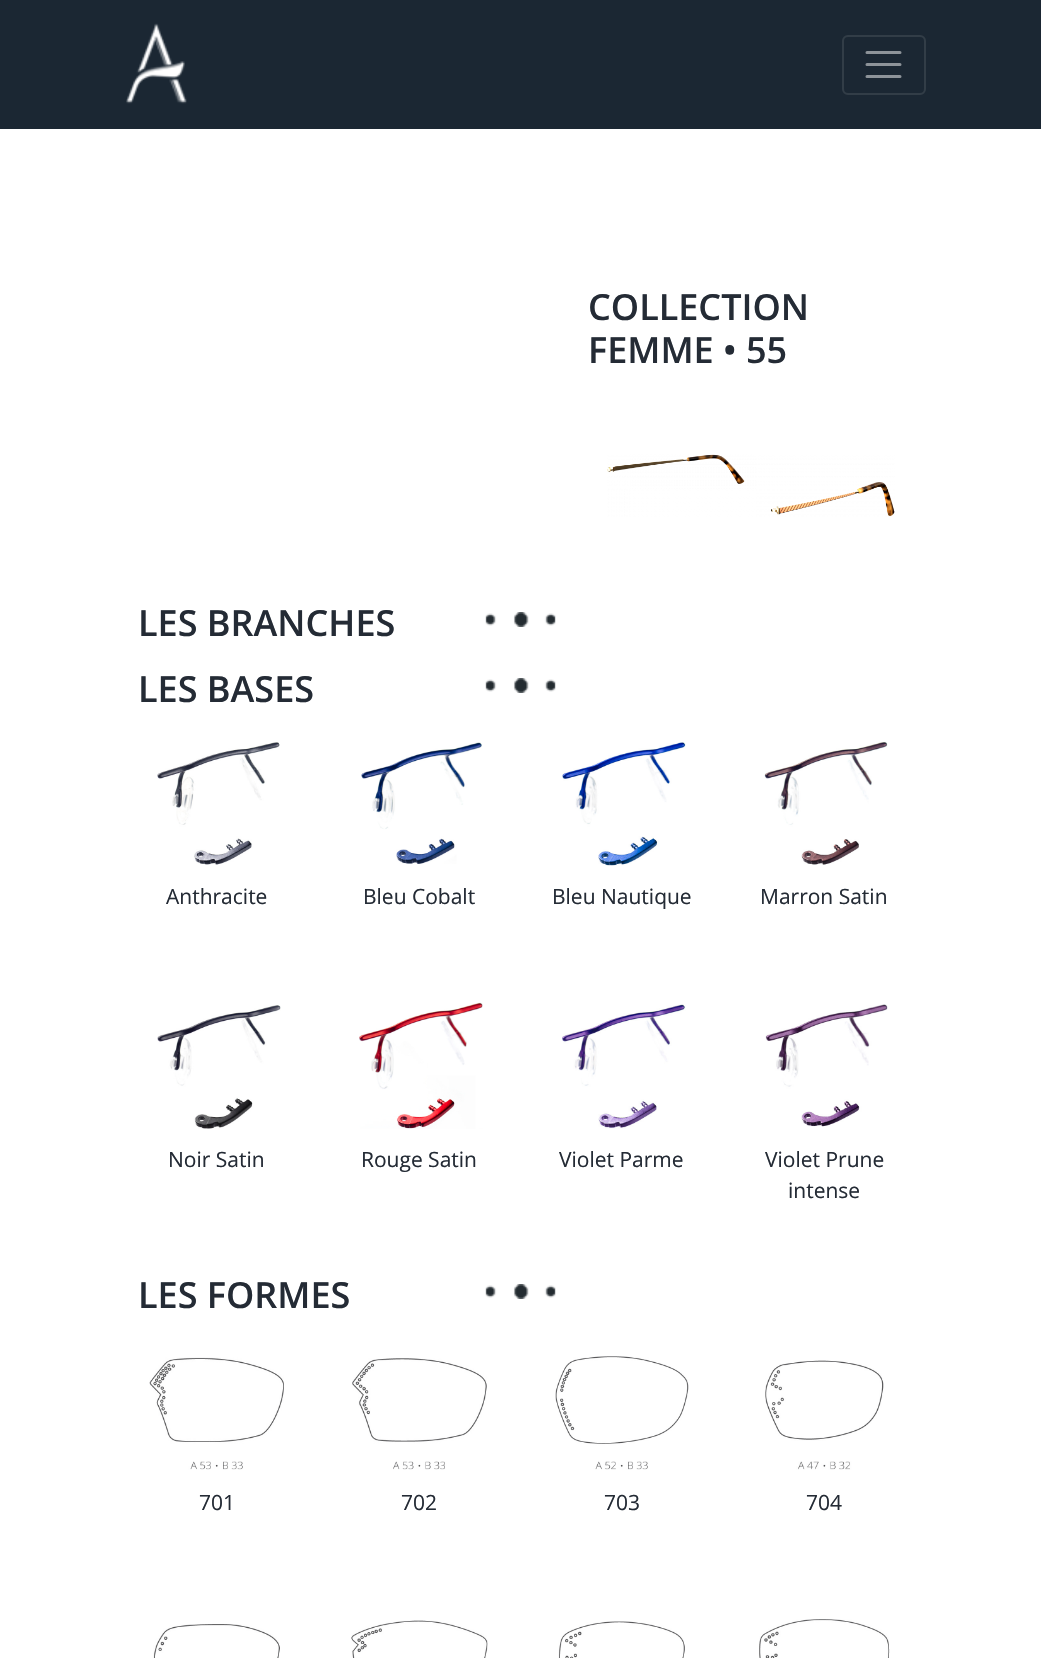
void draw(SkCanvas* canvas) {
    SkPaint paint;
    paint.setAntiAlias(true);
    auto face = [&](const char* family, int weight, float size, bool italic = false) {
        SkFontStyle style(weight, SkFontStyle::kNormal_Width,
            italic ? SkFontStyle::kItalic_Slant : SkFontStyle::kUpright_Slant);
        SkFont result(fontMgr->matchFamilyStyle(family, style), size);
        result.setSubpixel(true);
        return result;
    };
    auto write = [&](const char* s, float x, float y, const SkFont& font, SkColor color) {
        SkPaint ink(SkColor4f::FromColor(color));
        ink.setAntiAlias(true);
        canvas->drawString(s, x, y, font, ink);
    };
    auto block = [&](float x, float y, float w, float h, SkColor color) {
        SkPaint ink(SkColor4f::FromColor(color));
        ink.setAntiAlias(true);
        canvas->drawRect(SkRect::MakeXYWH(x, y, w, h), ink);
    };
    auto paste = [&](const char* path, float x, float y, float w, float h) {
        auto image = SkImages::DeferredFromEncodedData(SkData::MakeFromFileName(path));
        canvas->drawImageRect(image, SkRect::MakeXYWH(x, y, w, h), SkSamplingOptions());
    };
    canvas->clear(SK_ColorWHITE);
    block(0, 0, 1041, 129, SkColorSetRGB(27, 39, 51));
    paste("pic1.png", 126, 23, 61, 81);
    paint.setStyle(SkPaint::kStroke_Style);
    paint.setStrokeWidth(2);
    paint.setColor(SkColorSetRGB(50, 61, 71));
    canvas->drawRoundRect(SkRect::MakeXYWH(843, 36, 82, 58), 5, 5, paint);
    paint.setStrokeWidth(3);
    paint.setStrokeCap(SkPaint::kRound_Cap);
    paint.setColor(SkColorSetRGB(141, 147, 153));
    canvas->drawPath(SkPathBuilder().moveTo(867, 52.5f).lineTo(900, 52.5f).moveTo(867, 64.5f).lineTo(900, 64.5f).moveTo(867, 76.5f).lineTo(900, 76.5f).detach(), paint);
    auto kFont1 = face("Open Sans", 600, 36);
    write("COLLECTION", 588, 320, kFont1, SkColorSetRGB(36, 43, 53));
    write("FEMME • 55", 588, 363, kFont1, SkColorSetRGB(36, 43, 53));
    paste("pic2.png", 607, 454, 288, 63);
    write("LES BRANCHES", 138, 636, kFont1, SkColorSetRGB(36, 43, 53));
    paste("pic3.png", 485, 612, 71, 15);
    write("LES BASES", 138, 702, kFont1, SkColorSetRGB(36, 43, 53));
    paste("pic3.png", 485, 678, 71, 15);
    paste("pic4.png", 157, 742, 123, 123);
    auto kFont2 = face("Open Sans", 400, 21);
    write("Anthracite", 166, 904, kFont2, SkColorSetRGB(36, 43, 53));
    paste("pic5.png", 361, 742, 121, 122);
    write("Bleu Cobalt", 363, 904, kFont2, SkColorSetRGB(36, 43, 53));
    paste("pic6.png", 562, 742, 124, 124);
    write("Bleu Nautique", 552, 904, kFont2, SkColorSetRGB(36, 43, 53));
    paste("pic7.png", 764, 741, 124, 124);
    write("Marron Satin", 760, 904, kFont2, SkColorSetRGB(36, 43, 53));
    paste("pic8.png", 157, 1005, 124, 124);
    write("Noir Satin", 168, 1167, kFont2, SkColorSetRGB(36, 43, 53));
    paste("pic9.png", 359, 1002, 124, 127);
    write("Rouge Satin", 361, 1167, kFont2, SkColorSetRGB(36, 43, 53));
    paste("pic10.png", 562, 1004, 124, 125);
    write("Violet Parme", 559, 1167, kFont2, SkColorSetRGB(36, 43, 53));
    paste("pic11.png", 765, 1004, 123, 123);
    write("Violet Prune", 765, 1167, kFont2, SkColorSetRGB(36, 43, 53));
    write("intense", 788, 1198, kFont2, SkColorSetRGB(36, 43, 53));
    write("LES FORMES", 138, 1308, kFont1, SkColorSetRGB(36, 43, 53));
    paste("pic3.png", 485, 1284, 71, 15);
    paste("pic12.png", 149, 1357, 135, 113);
    write("701", 199, 1510, kFont2, SkColorSetRGB(36, 43, 53));
    paste("pic13.png", 352, 1358, 135, 112);
    write("702", 401, 1510, kFont2, SkColorSetRGB(36, 43, 53));
    paste("pic14.png", 555, 1356, 134, 114);
    write("703", 604, 1510, kFont2, SkColorSetRGB(36, 43, 53));
    paste("pic15.png", 765, 1360, 119, 110);
    write("704", 806, 1510, kFont2, SkColorSetRGB(36, 43, 53));
    paste("pic16.png", 153, 1624, 127, 34);
    paste("pic17.png", 351, 1620, 137, 38);
    paste("pic18.png", 558, 1621, 127, 37);
    paste("pic19.png", 759, 1619, 131, 39);
}
